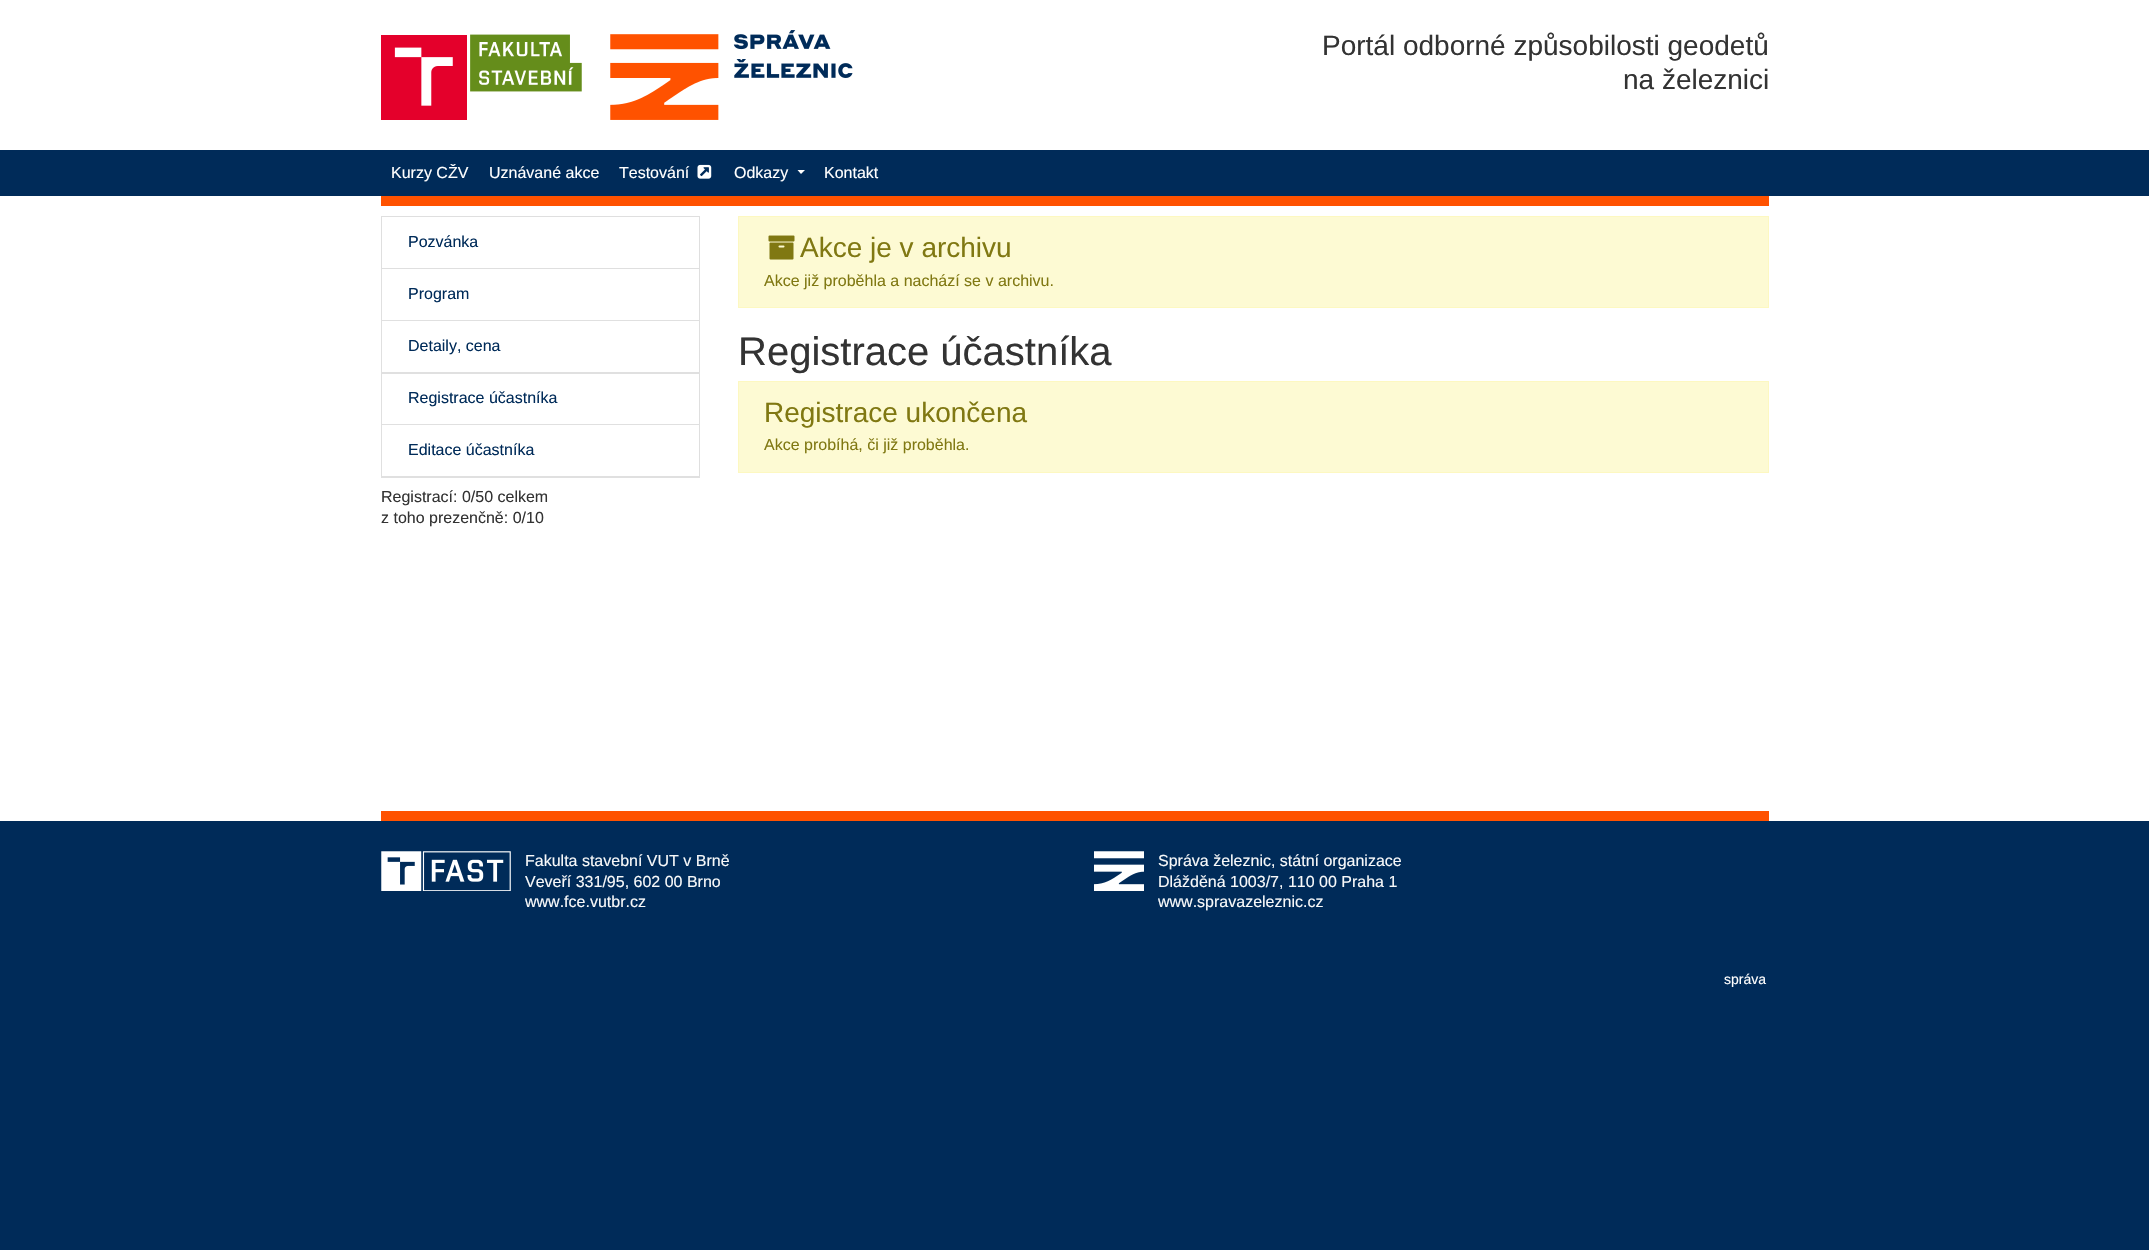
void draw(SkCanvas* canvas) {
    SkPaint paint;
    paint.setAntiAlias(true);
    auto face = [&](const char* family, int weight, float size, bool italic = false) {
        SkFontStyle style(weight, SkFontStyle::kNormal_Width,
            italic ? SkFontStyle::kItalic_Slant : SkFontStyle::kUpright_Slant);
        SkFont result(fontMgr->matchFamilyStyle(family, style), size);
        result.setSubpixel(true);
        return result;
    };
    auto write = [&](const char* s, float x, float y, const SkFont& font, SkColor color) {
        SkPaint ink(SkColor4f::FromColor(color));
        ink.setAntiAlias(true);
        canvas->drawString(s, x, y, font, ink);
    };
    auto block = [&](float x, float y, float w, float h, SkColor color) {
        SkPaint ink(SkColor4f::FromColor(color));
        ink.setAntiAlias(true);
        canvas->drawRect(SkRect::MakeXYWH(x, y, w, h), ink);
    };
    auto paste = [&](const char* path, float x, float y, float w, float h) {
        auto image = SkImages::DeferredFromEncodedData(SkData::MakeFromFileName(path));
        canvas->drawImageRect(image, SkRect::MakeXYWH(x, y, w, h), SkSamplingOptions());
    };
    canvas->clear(SkColorSetRGB(0, 43, 89));
    block(0, 0, 2149, 150, SK_ColorWHITE);
    paste("pic1.png", 381, 30, 472, 90);
    auto kFont1 = face("Liberation Sans", 400, 28);
    write("Portál odborné způsobilosti geodetů", 1322, 55, kFont1, SkColorSetRGB(51, 51, 51));
    write("na železnici", 1623, 89, kFont1, SkColorSetRGB(51, 51, 51));
    auto kFont2 = face("Liberation Sans", 400, 16);
    write("Kurzy CŽV", 391, 178, kFont2, SK_ColorWHITE);
    write("Uznávané akce", 489, 178, kFont2, SK_ColorWHITE);
    write("Testování", 619, 178, kFont2, SK_ColorWHITE);
    paste("pic2.png", 697, 164, 15, 15);
    write("Odkazy", 734, 178, kFont2, SK_ColorWHITE);
    paint.setColor(SK_ColorWHITE);
    canvas->drawPath(SkPathBuilder().moveTo(797.5f, 170).lineTo(805, 170).lineTo(801, 174).close().detach(), paint);
    write("Kontakt", 824, 178, kFont2, SK_ColorWHITE);
    block(0, 196, 2149, 625, SK_ColorWHITE);
    block(381, 196, 1388, 10, SkColorSetRGB(255, 82, 0));
    block(381, 811, 1388, 10, SkColorSetRGB(255, 82, 0));
    paint.setStyle(SkPaint::kStroke_Style);
    paint.setStrokeWidth(1);
    paint.setColor(SkColorSetRGB(223, 223, 223));
    canvas->drawRect(SkRect::MakeXYWH(381.5f, 216.5f, 318, 52), paint);
    write("Pozvánka", 408, 247, kFont2, SkColorSetRGB(0, 43, 89));
    paint.setStyle(SkPaint::kFill_Style);
    canvas->drawPath(SkPathBuilder().moveTo(700, 269).lineTo(700, 321).lineTo(699, 320).lineTo(699, 269).close().detach(), paint);
    paint.setColor(SkColorSetARGB(31, 0, 0, 0));
    canvas->drawPath(SkPathBuilder().moveTo(700, 321).lineTo(381, 321).lineTo(382, 320).lineTo(699, 320).close().detach(), paint);
    canvas->drawPath(SkPathBuilder().moveTo(381, 321).lineTo(381, 269).lineTo(382, 269).lineTo(382, 320).close().detach(), paint);
    write("Program", 408, 299, kFont2, SkColorSetRGB(0, 43, 89));
    paint.setColor(SkColorSetRGB(223, 223, 223));
    canvas->drawPath(SkPathBuilder().moveTo(700, 321).lineTo(700, 374).lineTo(699, 372).lineTo(699, 321).close().detach(), paint);
    paint.setColor(SkColorSetARGB(31, 0, 0, 0));
    canvas->drawPath(SkPathBuilder().moveTo(700, 374).lineTo(381, 374).lineTo(382, 372).lineTo(699, 372).close().detach(), paint);
    canvas->drawPath(SkPathBuilder().moveTo(381, 374).lineTo(381, 321).lineTo(382, 321).lineTo(382, 372).close().detach(), paint);
    write("Detaily, cena", 408, 351, kFont2, SkColorSetRGB(0, 43, 89));
    paint.setColor(SkColorSetRGB(223, 223, 223));
    canvas->drawPath(SkPathBuilder().moveTo(700, 374).lineTo(700, 425).lineTo(699, 424).lineTo(699, 374).close().detach(), paint);
    paint.setColor(SkColorSetARGB(31, 0, 0, 0));
    canvas->drawPath(SkPathBuilder().moveTo(700, 425).lineTo(381, 425).lineTo(382, 424).lineTo(699, 424).close().detach(), paint);
    canvas->drawPath(SkPathBuilder().moveTo(381, 425).lineTo(381, 374).lineTo(382, 374).lineTo(382, 424).close().detach(), paint);
    write("Registrace účastníka", 408, 403, kFont2, SkColorSetRGB(0, 43, 89));
    paint.setColor(SkColorSetRGB(223, 223, 223));
    canvas->drawPath(SkPathBuilder().moveTo(700, 425).lineTo(700, 478).lineTo(699, 476).lineTo(699, 425).close().detach(), paint);
    paint.setColor(SkColorSetARGB(31, 0, 0, 0));
    canvas->drawPath(SkPathBuilder().moveTo(700, 478).lineTo(381, 478).lineTo(382, 476).lineTo(699, 476).close().detach(), paint);
    canvas->drawPath(SkPathBuilder().moveTo(381, 478).lineTo(381, 425).lineTo(382, 425).lineTo(382, 476).close().detach(), paint);
    write("Editace účastníka", 408, 455, kFont2, SkColorSetRGB(0, 43, 89));
    write("Registrací: 0/50 celkem", 381, 502, kFont2, SkColorSetRGB(51, 51, 51));
    write("z toho prezenčně: 0/10", 381, 523, kFont2, SkColorSetRGB(51, 51, 51));
    paint.setColor(SkColorSetRGB(253, 250, 211));
    canvas->drawRect(SkRect::MakeXYWH(738.5f, 216.5f, 1030, 91), paint);
    paint.setStyle(SkPaint::kStroke_Style);
    paint.setColor(SkColorSetRGB(253, 248, 193));
    canvas->drawRect(SkRect::MakeXYWH(738.5f, 216.5f, 1030, 91), paint);
    paste("pic3.png", 768, 235, 27, 25);
    write("Akce je v archivu", 800, 257, kFont1, SkColorSetRGB(128, 120, 18));
    write("Akce již proběhla a nachází se v archivu.", 764, 286, kFont2, SkColorSetRGB(128, 120, 18));
    auto kFont3 = face("Liberation Sans", 400, 40);
    write("Registrace účastníka", 738, 365, kFont3, SkColorSetRGB(51, 51, 51));
    paint.setStyle(SkPaint::kFill_Style);
    paint.setColor(SkColorSetRGB(253, 250, 211));
    canvas->drawRect(SkRect::MakeXYWH(738.5f, 381.5f, 1030, 91), paint);
    paint.setStyle(SkPaint::kStroke_Style);
    paint.setColor(SkColorSetRGB(253, 248, 193));
    canvas->drawRect(SkRect::MakeXYWH(738.5f, 381.5f, 1030, 91), paint);
    write("Registrace ukončena", 764, 422, kFont1, SkColorSetRGB(128, 120, 18));
    write("Akce probíhá, či již proběhla.", 764, 450, kFont2, SkColorSetRGB(128, 120, 18));
    paste("pic4.png", 381, 851, 130, 40);
    write("Fakulta stavební VUT v Brně", 525, 866, kFont2, SkColorSetRGB(248, 249, 250));
    write("Veveří 331/95, 602 00 Brno", 525, 887, kFont2, SkColorSetRGB(248, 249, 250));
    write("www.fce.vutbr.cz", 525, 907, kFont2, SkColorSetRGB(248, 249, 250));
    paste("pic5.png", 1094, 851, 50, 40);
    write("Správa železnic, státní organizace", 1158, 866, kFont2, SkColorSetRGB(248, 249, 250));
    write("Dlážděná 1003/7, 110 00 Praha 1", 1158, 887, kFont2, SkColorSetRGB(248, 249, 250));
    write("www.spravazeleznic.cz", 1158, 907, kFont2, SkColorSetRGB(248, 249, 250));
    auto kFont4 = face("Liberation Sans", 400, 14);
    write("správa", 1724, 984, kFont4, SK_ColorWHITE);
}
